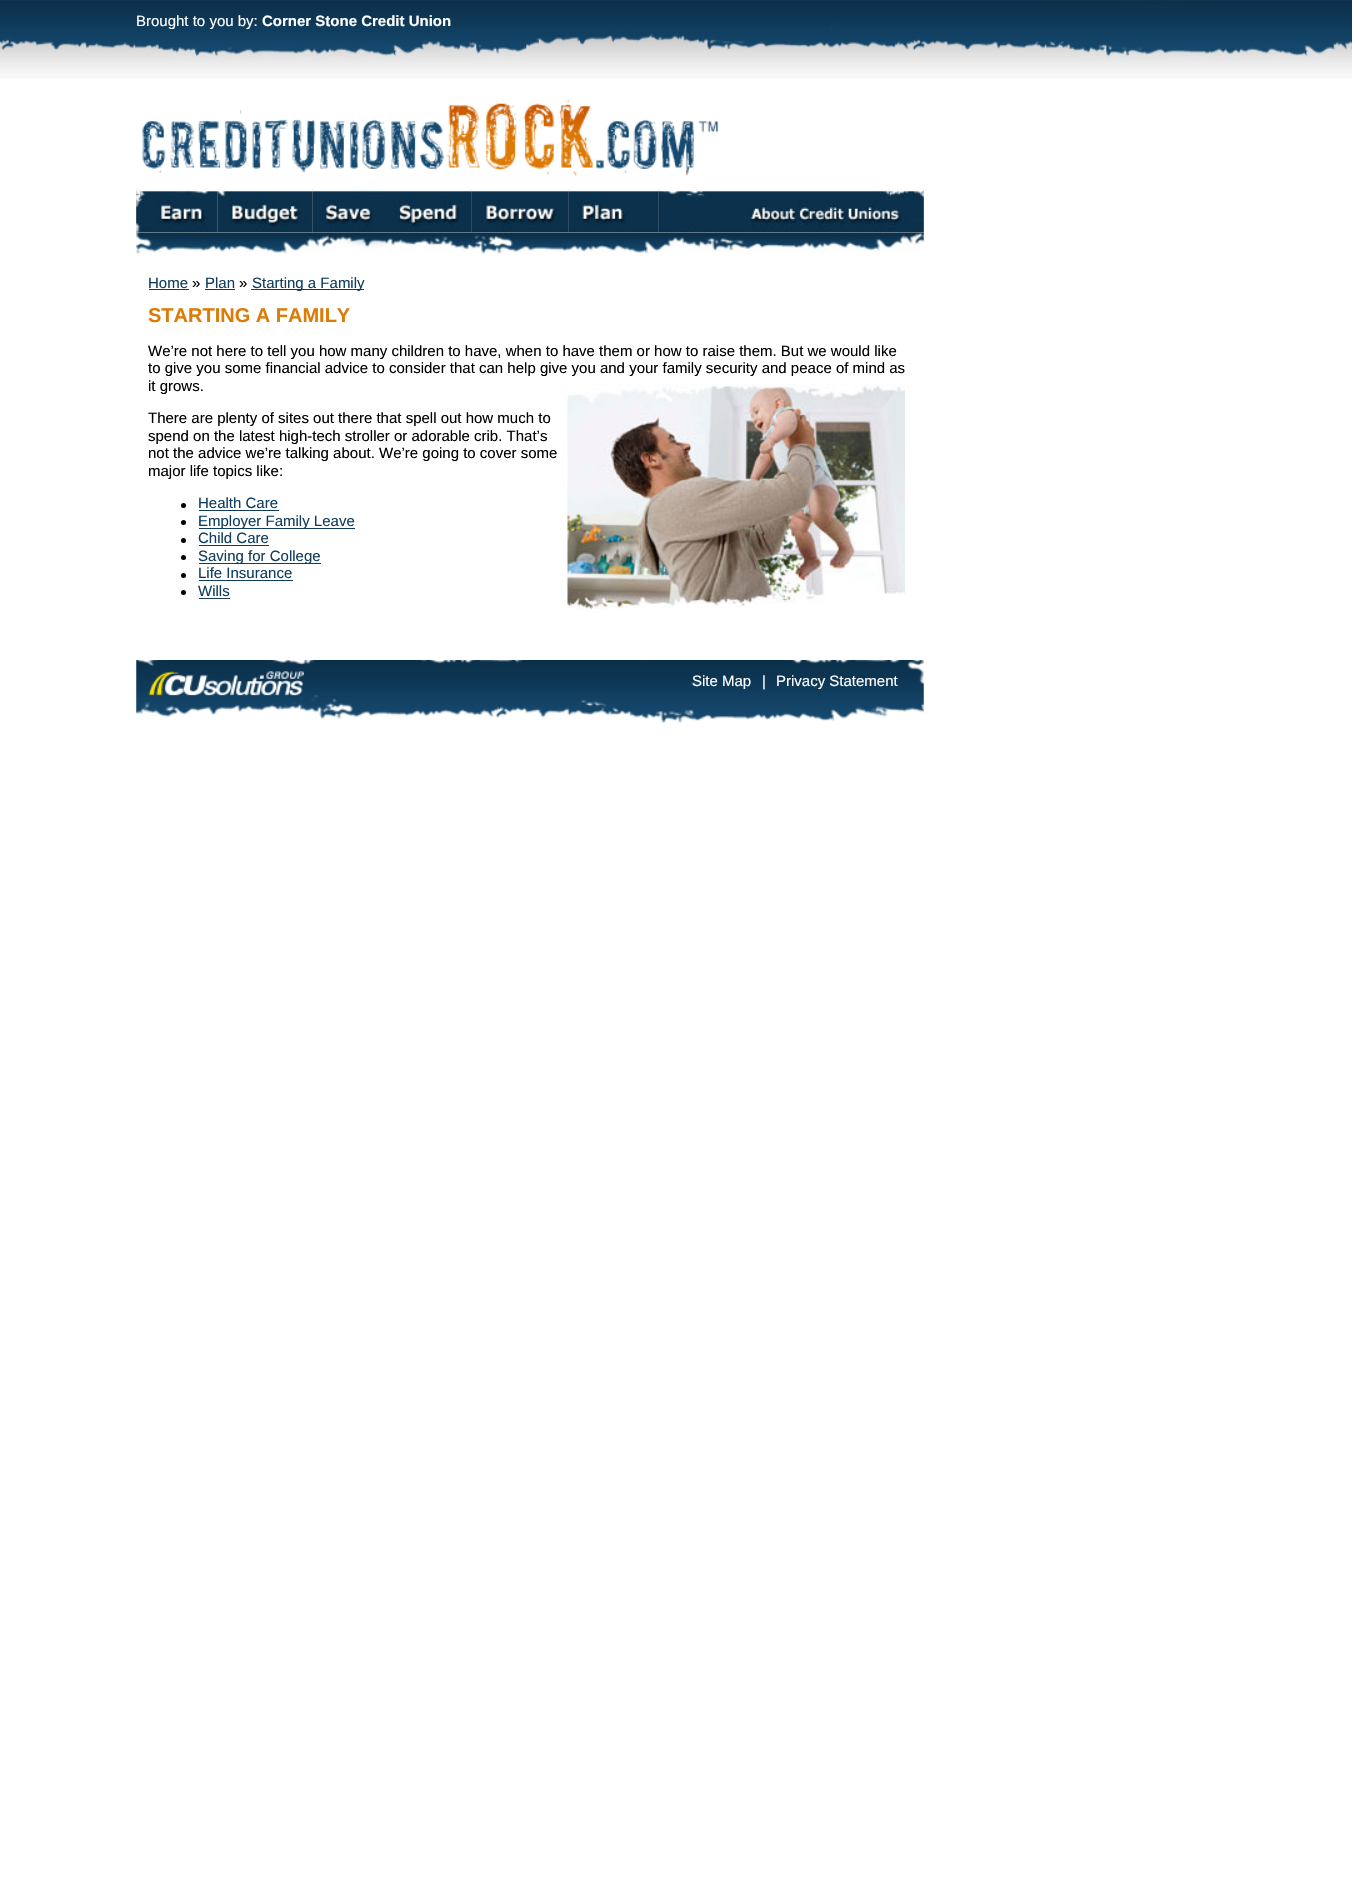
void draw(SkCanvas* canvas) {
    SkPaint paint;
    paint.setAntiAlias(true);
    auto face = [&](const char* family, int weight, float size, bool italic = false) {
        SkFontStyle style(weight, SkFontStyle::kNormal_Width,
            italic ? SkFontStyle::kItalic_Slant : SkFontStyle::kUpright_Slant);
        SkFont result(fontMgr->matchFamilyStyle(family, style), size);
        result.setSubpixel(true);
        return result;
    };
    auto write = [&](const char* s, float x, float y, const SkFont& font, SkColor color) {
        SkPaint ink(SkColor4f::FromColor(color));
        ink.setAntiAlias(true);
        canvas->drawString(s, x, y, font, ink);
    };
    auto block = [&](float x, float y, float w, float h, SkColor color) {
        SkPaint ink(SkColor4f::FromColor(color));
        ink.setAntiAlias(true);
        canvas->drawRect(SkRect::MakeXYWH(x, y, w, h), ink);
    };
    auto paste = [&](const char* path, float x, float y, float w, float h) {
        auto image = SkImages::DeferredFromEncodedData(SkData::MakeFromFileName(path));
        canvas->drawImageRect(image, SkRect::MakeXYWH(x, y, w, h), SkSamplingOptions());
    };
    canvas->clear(SK_ColorWHITE);
    paste("pic1.png", 0, 0, 1352, 79);
    auto kFont1 = face("Liberation Sans", 400, 15);
    write("Brought to you by:", 136, 26, kFont1, SK_ColorWHITE);
    auto kFont2 = face("Liberation Sans", 700, 15);
    write("Corner Stone Credit Union", 262, 26, kFont2, SK_ColorWHITE);
    paste("pic2.png", 142, 100, 576, 77);
    block(136, 189, 788, 44, SkColorSetRGB(192, 192, 192));
    paste("pic3.png", 136, 189, 82, 44);
    paste("pic4.png", 217, 189, 96, 44);
    paste("pic5.png", 312, 189, 73, 44);
    paste("pic6.png", 385, 189, 87, 44);
    paste("pic7.png", 471, 189, 98, 44);
    paste("pic8.png", 568, 189, 91, 44);
    paste("pic9.png", 658, 189, 266, 44);
    paste("pic10.png", 136, 233, 788, 21);
    write("Home", 148, 288, kFont1, SkColorSetRGB(16, 61, 94));
    block(149, 289, 40, 1, SkColorSetRGB(16, 61, 94));
    write("»", 192, 288, kFont1, SK_ColorBLACK);
    write("Plan", 205, 288, kFont1, SkColorSetRGB(16, 61, 94));
    block(205, 289, 30, 1, SkColorSetRGB(16, 61, 94));
    write("»", 239, 288, kFont1, SK_ColorBLACK);
    block(251, 289, 113, 1, SkColorSetRGB(16, 61, 94));
    write("Starting a Family", 252, 288, kFont1, SkColorSetRGB(16, 61, 94));
    auto kFont3 = face("Liberation Sans", 700, 20);
    write("STARTING A FAMILY", 148, 322, kFont3, SkColorSetRGB(222, 123, 6));
    write("We’re not here to tell you how many children to have, when to have them or how to raise them. But we would like", 148, 356, kFont1, SK_ColorBLACK);
    write("to give you some financial advice to consider that can help give you and your family security and peace of mind as", 148, 373, kFont1, SK_ColorBLACK);
    write("it grows.", 148, 391, kFont1, SK_ColorBLACK);
    paste("pic11.png", 567, 384, 338, 225);
    write("There are plenty of sites out there that spell out how much to", 148, 423, kFont1, SK_ColorBLACK);
    write("spend on the latest high-tech stroller or adorable crib. That’s", 148, 441, kFont1, SK_ColorBLACK);
    write("not the advice we’re talking about. We’re going to cover some", 148, 458, kFont1, SK_ColorBLACK);
    write("major life topics like:", 148, 476, kFont1, SK_ColorBLACK);
    paint.setColor(SK_ColorBLACK);
    canvas->drawCircle(183.5f, 505.5f, 2.5f, paint);
    write("Health Care", 198, 508, kFont1, SkColorSetRGB(16, 61, 94));
    block(199, 510, 80, 1, SkColorSetRGB(16, 61, 94));
    canvas->drawCircle(183.5f, 522.5f, 2.5f, paint);
    block(199, 528, 156, 1, SkColorSetRGB(16, 61, 94));
    write("Employer Family Leave", 198, 526, kFont1, SkColorSetRGB(16, 61, 94));
    canvas->drawCircle(183.5f, 540.5f, 2.5f, paint);
    write("Child Care", 198, 543, kFont1, SkColorSetRGB(16, 61, 94));
    block(199, 545, 70, 1, SkColorSetRGB(16, 61, 94));
    canvas->drawCircle(183.5f, 557.5f, 2.5f, paint);
    block(199, 563, 122, 1, SkColorSetRGB(16, 61, 94));
    write("Saving for College", 198, 561, kFont1, SkColorSetRGB(16, 61, 94));
    canvas->drawCircle(183.5f, 575.5f, 2.5f, paint);
    write("Life Insurance", 198, 578, kFont1, SkColorSetRGB(16, 61, 94));
    block(199, 580, 94, 1, SkColorSetRGB(16, 61, 94));
    canvas->drawCircle(183.5f, 592.5f, 2.5f, paint);
    write("Wills", 198, 596, kFont1, SkColorSetRGB(16, 61, 94));
    block(199, 598, 31, 1, SkColorSetRGB(16, 61, 94));
    paste("pic12.png", 136, 660, 788, 63);
    write("Site Map", 692, 686, kFont1, SK_ColorWHITE);
    write("|", 762, 686, kFont1, SK_ColorWHITE);
    write("Privacy Statement", 776, 686, kFont1, SK_ColorWHITE);
}
